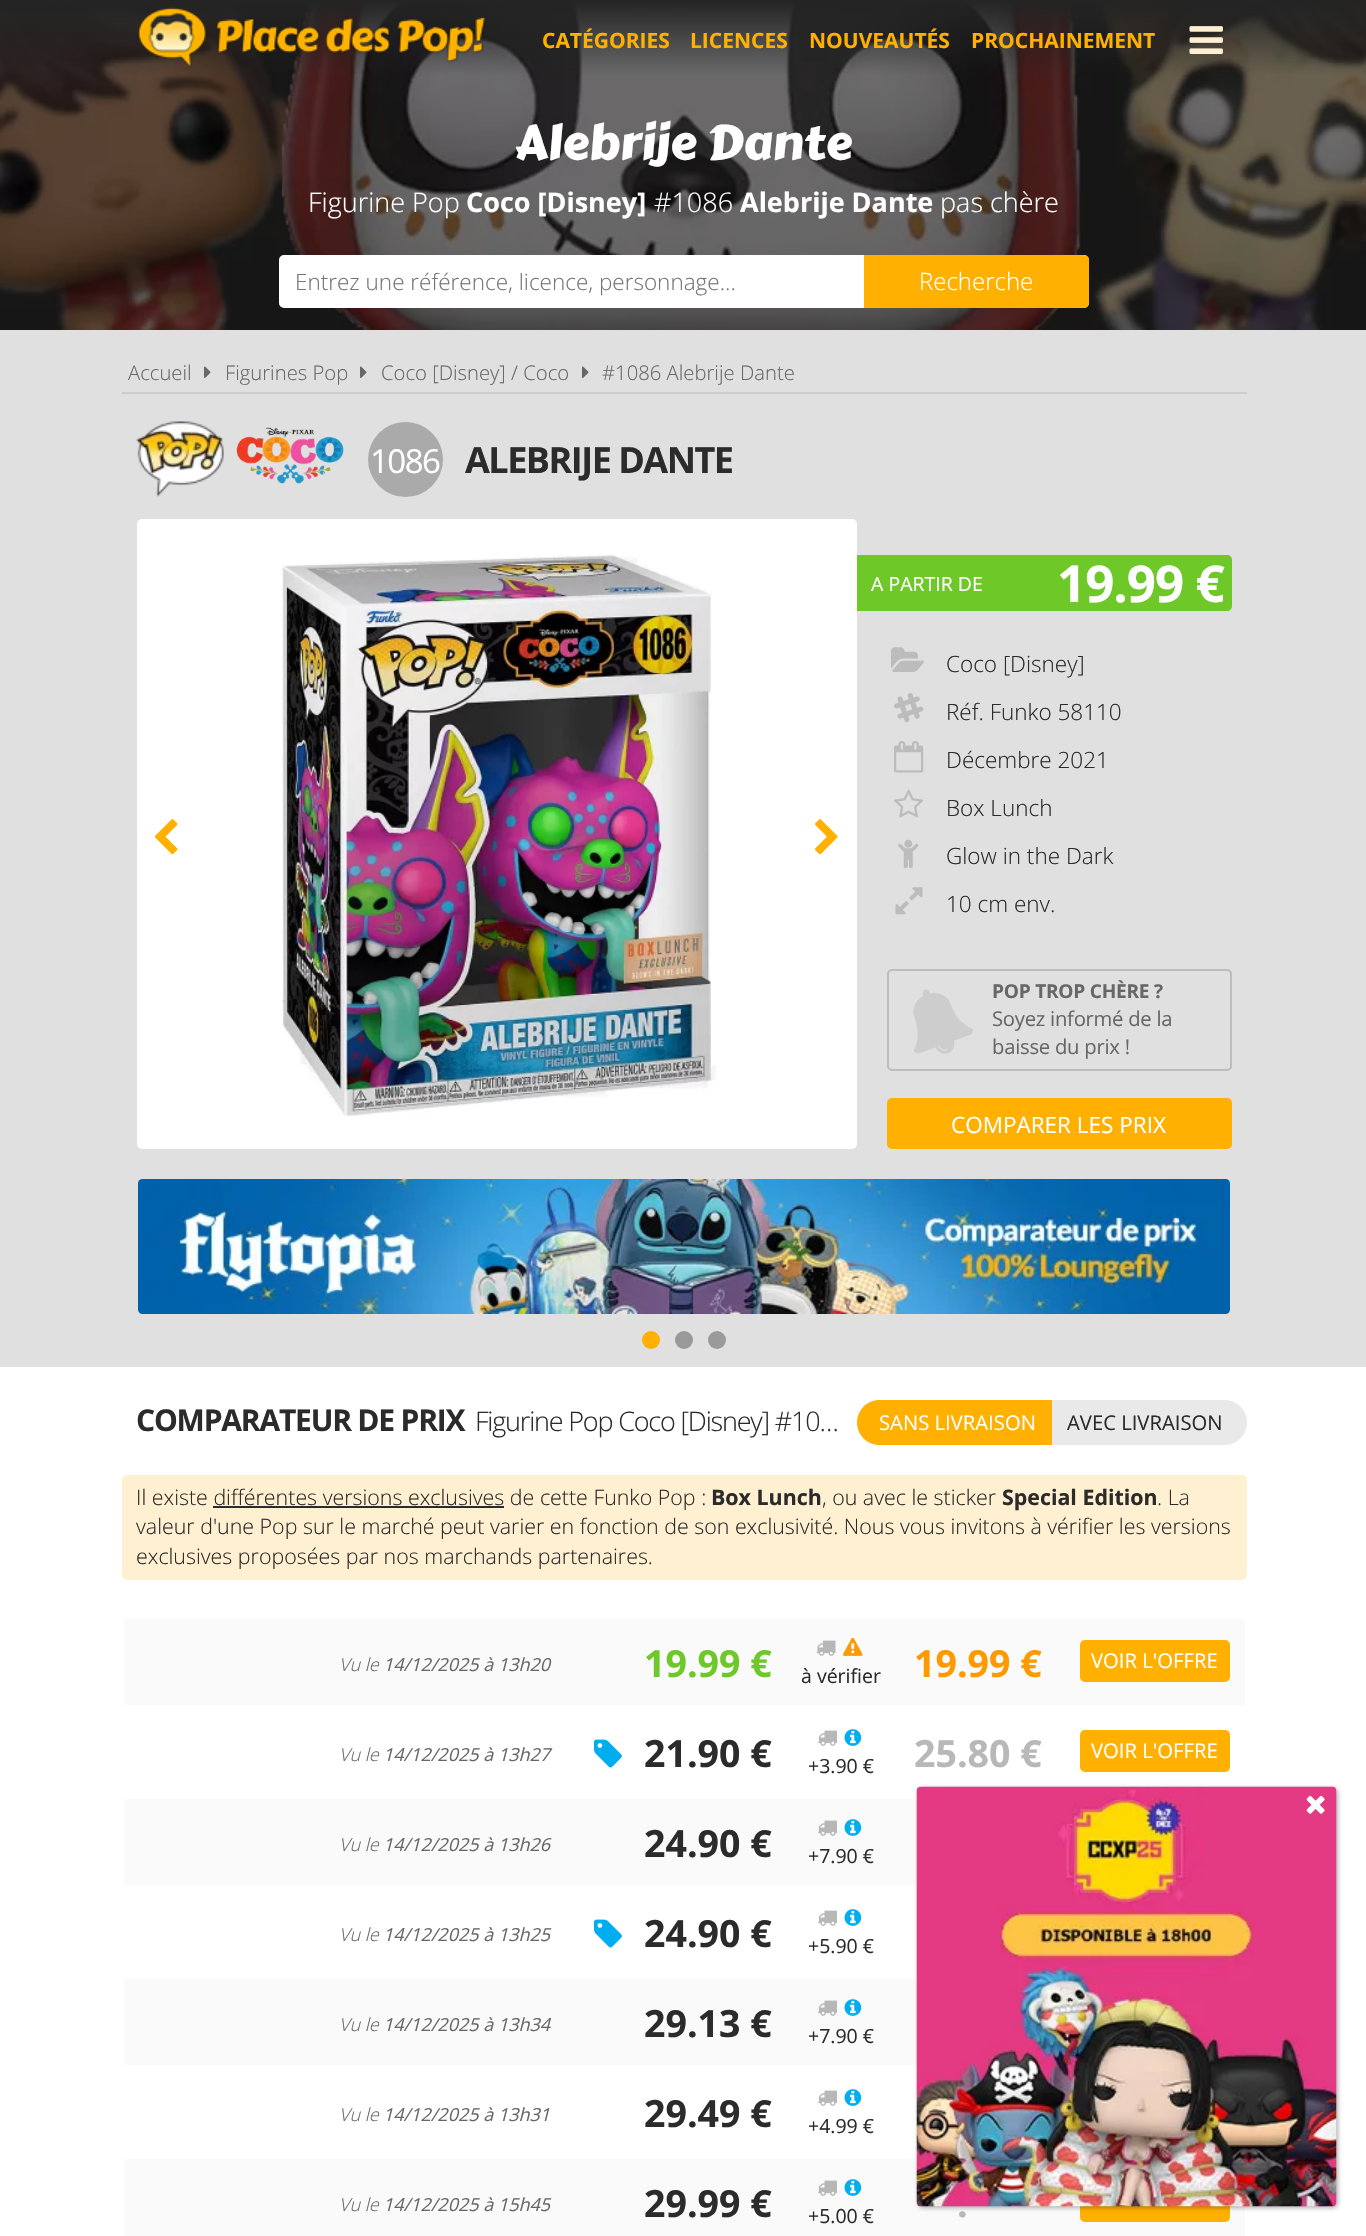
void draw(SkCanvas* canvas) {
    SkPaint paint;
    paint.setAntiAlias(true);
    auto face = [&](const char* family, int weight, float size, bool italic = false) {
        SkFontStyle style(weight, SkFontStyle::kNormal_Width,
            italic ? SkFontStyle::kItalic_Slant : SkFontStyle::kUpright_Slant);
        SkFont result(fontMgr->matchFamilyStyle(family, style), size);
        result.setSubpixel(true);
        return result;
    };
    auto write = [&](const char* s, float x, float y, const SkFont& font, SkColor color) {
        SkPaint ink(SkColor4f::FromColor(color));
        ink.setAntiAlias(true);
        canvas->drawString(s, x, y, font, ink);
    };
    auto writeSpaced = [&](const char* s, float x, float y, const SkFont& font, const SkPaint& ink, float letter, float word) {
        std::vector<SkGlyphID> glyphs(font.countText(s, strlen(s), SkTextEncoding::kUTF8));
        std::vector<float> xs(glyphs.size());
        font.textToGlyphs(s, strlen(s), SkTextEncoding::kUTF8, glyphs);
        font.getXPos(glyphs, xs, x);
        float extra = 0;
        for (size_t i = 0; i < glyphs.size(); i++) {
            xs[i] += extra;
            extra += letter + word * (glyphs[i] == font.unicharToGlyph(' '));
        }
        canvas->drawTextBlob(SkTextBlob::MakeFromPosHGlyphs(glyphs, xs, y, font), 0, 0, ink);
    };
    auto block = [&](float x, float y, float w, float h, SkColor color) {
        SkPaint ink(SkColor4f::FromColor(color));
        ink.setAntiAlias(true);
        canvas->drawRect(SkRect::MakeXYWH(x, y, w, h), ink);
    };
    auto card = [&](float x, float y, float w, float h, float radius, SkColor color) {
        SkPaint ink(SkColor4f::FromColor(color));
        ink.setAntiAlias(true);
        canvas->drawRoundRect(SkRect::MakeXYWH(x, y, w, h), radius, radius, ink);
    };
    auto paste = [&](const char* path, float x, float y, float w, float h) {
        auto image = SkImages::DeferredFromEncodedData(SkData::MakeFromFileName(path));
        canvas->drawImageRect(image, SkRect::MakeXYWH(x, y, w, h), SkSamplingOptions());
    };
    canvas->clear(SkColorSetRGB(224, 224, 224));
    paste("pic3.png", 0, 0, 1366, 330);
    paste("pic1.png", 138, 7, 348, 61);
    auto kFont1 = face("Open Sans", 700, 21);
    write("CATÉGORIES", 542, 48, kFont1, SkColorSetRGB(255, 176, 0));
    write("LICENCES", 690, 48, kFont1, SkColorSetRGB(255, 176, 0));
    write("NOUVEAUTÉS", 809, 48, kFont1, SkColorSetRGB(255, 176, 0));
    write("PROCHAINEMENT", 971, 48, kFont1, SkColorSetRGB(255, 176, 0));
    paste("pic2.png", 1189, 26, 34, 28);
    auto kFont2 = face("Carter One", 400, 48);
    write("Alebrije Dante", 515, 159, kFont2, SK_ColorWHITE);
    auto kFont3 = face("Open Sans", 300, 27);
    write("Figurine Pop", 308, 212, kFont3, SK_ColorWHITE);
    auto kFont4 = face("Open Sans", 700, 27);
    write("Coco [Disney]", 466, 212, kFont4, SK_ColorWHITE);
    write("#1086", 654, 212, kFont3, SK_ColorWHITE);
    write("Alebrije Dante", 740, 212, kFont4, SK_ColorWHITE);
    write("pas chère", 940, 212, kFont3, SK_ColorWHITE);
    paint.setColor(SK_ColorWHITE);
    canvas->drawRoundRect(SkRect::MakeXYWH(280, 256, 808, 51), 4, 4, paint);
    paint.setStyle(SkPaint::kStroke_Style);
    paint.setStrokeWidth(2);
    canvas->drawRoundRect(SkRect::MakeXYWH(280, 256, 808, 51), 4, 4, paint);
    auto kFont5 = face("Open Sans", 300, 22.5f);
    write("Entrez une référence, licence, personnage...", 295, 290, kFont5, SkColorSetRGB(117, 117, 117));
    paint.setStyle(SkPaint::kFill_Style);
    paint.setColor(SkColorSetRGB(255, 176, 0));
    canvas->drawPath(SkPathBuilder().moveTo(865, 256).lineTo(1084, 256).cubicTo(1086, 256, 1088, 258, 1088, 260).lineTo(1088, 303).cubicTo(1088, 305, 1086, 307, 1084, 307).lineTo(865, 307).close().detach(), paint);
    paint.setStyle(SkPaint::kStroke_Style);
    canvas->drawPath(SkPathBuilder().moveTo(865, 256).lineTo(1084, 256).cubicTo(1086, 256, 1088, 258, 1088, 260).lineTo(1088, 303).cubicTo(1088, 305, 1086, 307, 1084, 307).lineTo(865, 307).close().detach(), paint);
    auto kFont6 = face("Open Sans", 300, 24);
    write("Recherche", 919, 290, kFont6, SK_ColorWHITE);
    block(122, 392, 1125, 2, SkColorSetRGB(204, 204, 204));
    auto kFont7 = face("Open Sans", 300, 20.25f);
    write("Accueil", 128, 380, kFont7, SkColorSetRGB(103, 103, 103));
    paste("pic4.png", 204, 366, 7, 12);
    write("Figurines Pop", 225, 380, kFont7, SkColorSetRGB(103, 103, 103));
    paste("pic4.png", 360, 366, 7, 12);
    write("Coco [Disney] / Coco", 381, 380, kFont7, SkColorSetRGB(103, 103, 103));
    paste("pic4.png", 582, 366, 7, 12);
    write("#1086 Alebrije Dante", 602, 380, kFont7, SkColorSetRGB(103, 103, 103));
    paste("pic5.png", 136, 421, 88, 76);
    paste("pic6.png", 236, 427, 108, 57);
    paint.setStyle(SkPaint::kFill_Style);
    paint.setColor(SkColorSetRGB(170, 170, 170));
    canvas->drawCircle(405.5f, 459.5f, 37.5f, paint);
    auto kFont8 = face("Open Sans", 400, 33);
    paint.setColor(SK_ColorWHITE);
    writeSpaced("1086", 370, 473, kFont8, paint, -1.5f, 0);
    auto kFont9 = face("Open Sans", 700, 36);
    paint.setColor(SkColorSetRGB(43, 43, 43));
    writeSpaced("ALEBRIJE DANTE", 465, 473, kFont9, paint, -1.5f, 0);
    card(137, 519, 720, 630, 5, SK_ColorWHITE);
    paste("pic7.png", 154, 819, 24, 36);
    paste("pic8.png", 281, 554, 436, 563);
    paste("pic9.png", 815, 819, 23, 36);
    paint.setColor(SkColorSetRGB(110, 200, 40));
    canvas->drawPath(SkPathBuilder().moveTo(857, 555).lineTo(1227, 555).cubicTo(1230, 555, 1232, 557, 1232, 560).lineTo(1232, 606).cubicTo(1232, 609, 1230, 611, 1227, 611).lineTo(857, 611).close().detach(), paint);
    auto kFont10 = face("Open Sans", 400, 19.5f);
    write("A PARTIR DE", 871, 591, kFont10, SK_ColorWHITE);
    auto kFont11 = face("Open Sans", 700, 51);
    paint.setColor(SK_ColorWHITE);
    writeSpaced("19.99 €", 1057, 602, kFont11, paint, -1, 0);
    paste("pic10.png", 891, 647, 33, 25);
    write("Coco [Disney]", 946, 672, kFont5, SkColorSetRGB(43, 43, 43));
    paste("pic11.png", 894, 693, 30, 30);
    write("Réf. Funko 58110", 946, 720, kFont5, SkColorSetRGB(43, 43, 43));
    paste("pic12.png", 894, 741, 30, 32);
    write("Décembre 2021", 946, 768, kFont5, SkColorSetRGB(43, 43, 43));
    paste("pic13.png", 894, 789, 30, 29);
    write("Box Lunch", 946, 816, kFont5, SkColorSetRGB(43, 43, 43));
    paste("pic14.png", 898, 839, 21, 30);
    write("Glow in the Dark", 946, 864, kFont5, SkColorSetRGB(43, 43, 43));
    paste("pic15.png", 895, 887, 28, 28);
    write("10 cm env.", 946, 912, kFont5, SkColorSetRGB(43, 43, 43));
    paste("pic16.png", 913, 989, 60, 65);
    paint.setStyle(SkPaint::kStroke_Style);
    paint.setColor(SkColorSetRGB(189, 189, 189));
    canvas->drawRoundRect(SkRect::MakeXYWH(888, 970, 343, 100), 4, 4, paint);
    auto kFont12 = face("Open Sans", 700, 19.1f);
    paint.setStyle(SkPaint::kFill_Style);
    paint.setColor(SkColorSetRGB(103, 103, 103));
    writeSpaced("POP TROP CHÈRE ?", 992, 998, kFont12, paint, -0.25f, 0);
    auto kFont13 = face("Open Sans", 400, 20.25f);
    writeSpaced("Soyez informé de la", 992, 1026, kFont13, paint, -0.25f, 0);
    writeSpaced("baisse du prix !", 992, 1054, kFont13, paint, -0.25f, 0);
    card(887, 1098, 345, 51, 5, SkColorSetRGB(255, 176, 0));
    auto kFont14 = face("Open Sans", 400, 22.5f);
    write("COMPARER LES PRIX", 951, 1133, kFont14, SK_ColorWHITE);
    paste("pic17.png", 138, 1179, 1092, 135);
    paint.setColor(SkColorSetRGB(255, 176, 0));
    canvas->drawCircle(651, 1340, 9, paint);
    paint.setColor(SkColorSetRGB(154, 154, 154));
    canvas->drawCircle(684, 1340, 9, paint);
    canvas->drawCircle(717, 1340, 9, paint);
    block(0, 1367, 1366, 869, SK_ColorWHITE);
    auto kFont15 = face("Open Sans", 700, 30);
    paint.setColor(SkColorSetRGB(43, 43, 43));
    writeSpaced("COMPARATEUR DE PRIX", 136, 1431, kFont15, paint, -1.2f, 0);
    writeSpaced("Figurine Pop Coco [Disney] #10…", 475, 1431, kFont3, paint, -1.2f, 0);
    paint.setColor(SkColorSetRGB(255, 176, 0));
    canvas->drawPath(SkPathBuilder().moveTo(879.5f, 1400).lineTo(1052, 1400).lineTo(1052, 1445).lineTo(879.5f, 1445).cubicTo(867, 1445, 857, 1435, 857, 1422.5f).cubicTo(857, 1410, 867, 1400, 879.5f, 1400).close().detach(), paint);
    write("SANS LIVRAISON", 879, 1430, kFont13, SK_ColorWHITE);
    paint.setColor(SkColorSetRGB(233, 233, 233));
    canvas->drawPath(SkPathBuilder().moveTo(1052, 1400).lineTo(1224.5f, 1400).cubicTo(1237, 1400, 1247, 1410, 1247, 1422.5f).cubicTo(1247, 1435, 1237, 1445, 1224.5f, 1445).lineTo(1052, 1445).close().detach(), paint);
    write("AVEC LIVRAISON", 1067, 1430, kFont13, SkColorSetRGB(43, 43, 43));
    card(122, 1475, 1125, 105, 5, SkColorSetRGB(255, 240, 209));
    auto kFont16 = face("Open Sans", 300, 21.38f);
    write("Il existe différentes versions exclusives de cette Funko Pop :", 136, 1505, kFont16, SkColorSetRGB(43, 43, 43));
    auto kFont17 = face("Open Sans", 700, 21.38f);
    write("Box Lunch", 711, 1505, kFont17, SkColorSetRGB(43, 43, 43));
    write(", ou avec le sticker", 822, 1505, kFont16, SkColorSetRGB(43, 43, 43));
    write("Special Edition", 1002, 1505, kFont17, SkColorSetRGB(43, 43, 43));
    write(". La", 1157, 1505, kFont16, SkColorSetRGB(43, 43, 43));
    block(213, 1506, 291, 2, SkColorSetRGB(43, 43, 43));
    write("valeur d'une Pop sur le marché peut varier en fonction de son exclusivité. Nous vous invitons à vérifier les versions", 136, 1534, kFont16, SkColorSetRGB(43, 43, 43));
    write("exclusives proposées par nos marchands partenaires.", 136, 1564, kFont16, SkColorSetRGB(43, 43, 43));
    paint.setColor(SkColorSetRGB(250, 250, 250));
    canvas->drawRoundRect(SkRect::MakeXYWH(123, 1618, 1123, 88), 4, 4, paint);
    paint.setStyle(SkPaint::kStroke_Style);
    paint.setColor(SK_ColorWHITE);
    canvas->drawRoundRect(SkRect::MakeXYWH(123, 1618, 1123, 88), 4, 4, paint);
    auto kFont18 = face("Open Sans", 300, 18, true);
    write("Vu le", 339, 1671, kFont18, SkColorSetRGB(103, 103, 103));
    auto kFont19 = face("Open Sans", 400, 18, true);
    write("14/12/2025 à 13h20", 383, 1671, kFont19, SkColorSetRGB(103, 103, 103));
    auto kFont20 = face("Open Sans", 700, 37.5f);
    write("19.99 €", 644, 1677, kFont20, SkColorSetRGB(110, 200, 40));
    write("19.99 €", 914, 1677, kFont20, SkColorSetRGB(255, 153, 0));
    card(1080, 1640, 150, 42, 5, SkColorSetRGB(255, 176, 0));
    write("VOIR L'OFFRE", 1091, 1668, kFont13, SK_ColorWHITE);
    paste("pic18.png", 816, 1640, 20, 16);
    paste("pic19.png", 843, 1637, 20, 19);
    write("à vérifier", 801, 1683, kFont10, SkColorSetRGB(43, 43, 43));
    write("Vu le", 339, 1761, kFont18, SkColorSetRGB(103, 103, 103));
    write("14/12/2025 à 13h27", 383, 1761, kFont19, SkColorSetRGB(103, 103, 103));
    write("21.90 €", 644, 1767, kFont20, SkColorSetRGB(43, 43, 43));
    write("25.80 €", 914, 1767, kFont20, SkColorSetRGB(184, 184, 184));
    card(1080, 1730, 150, 42, 5, SkColorSetRGB(255, 176, 0));
    write("VOIR L'OFFRE", 1091, 1758, kFont13, SK_ColorWHITE);
    paste("pic20.png", 594, 1739, 28, 29);
    paste("pic21.png", 818, 1730, 19, 16);
    paste("pic22.png", 844, 1729, 18, 17);
    write("+3.90 €", 808, 1773, kFont10, SkColorSetRGB(43, 43, 43));
    paint.setStyle(SkPaint::kFill_Style);
    paint.setColor(SkColorSetRGB(250, 250, 250));
    canvas->drawRoundRect(SkRect::MakeXYWH(123, 1798, 1123, 88), 4, 4, paint);
    paint.setStyle(SkPaint::kStroke_Style);
    paint.setColor(SK_ColorWHITE);
    canvas->drawRoundRect(SkRect::MakeXYWH(123, 1798, 1123, 88), 4, 4, paint);
    write("Vu le", 339, 1851, kFont18, SkColorSetRGB(103, 103, 103));
    write("14/12/2025 à 13h26", 383, 1851, kFont19, SkColorSetRGB(103, 103, 103));
    write("24.90 €", 644, 1857, kFont20, SkColorSetRGB(43, 43, 43));
    paste("pic23.png", 818, 1820, 19, 16);
    paste("pic24.png", 844, 1819, 18, 17);
    write("+7.90 €", 808, 1863, kFont10, SkColorSetRGB(43, 43, 43));
    write("Vu le", 339, 1941, kFont18, SkColorSetRGB(103, 103, 103));
    write("14/12/2025 à 13h25", 383, 1941, kFont19, SkColorSetRGB(103, 103, 103));
    write("24.90 €", 644, 1947, kFont20, SkColorSetRGB(43, 43, 43));
    paste("pic20.png", 594, 1919, 28, 29);
    paste("pic21.png", 818, 1910, 19, 16);
    paste("pic22.png", 844, 1909, 18, 17);
    write("+5.90 €", 808, 1953, kFont10, SkColorSetRGB(43, 43, 43));
    paint.setStyle(SkPaint::kFill_Style);
    paint.setColor(SkColorSetRGB(250, 250, 250));
    canvas->drawRoundRect(SkRect::MakeXYWH(123, 1978, 1123, 88), 4, 4, paint);
    paint.setStyle(SkPaint::kStroke_Style);
    paint.setColor(SK_ColorWHITE);
    canvas->drawRoundRect(SkRect::MakeXYWH(123, 1978, 1123, 88), 4, 4, paint);
    write("Vu le", 339, 2031, kFont18, SkColorSetRGB(103, 103, 103));
    write("14/12/2025 à 13h34", 383, 2031, kFont19, SkColorSetRGB(103, 103, 103));
    write("29.13 €", 644, 2037, kFont20, SkColorSetRGB(43, 43, 43));
    paste("pic23.png", 818, 2000, 19, 16);
    paste("pic24.png", 844, 1999, 18, 17);
    write("+7.90 €", 808, 2043, kFont10, SkColorSetRGB(43, 43, 43));
    write("Vu le", 339, 2121, kFont18, SkColorSetRGB(103, 103, 103));
    write("14/12/2025 à 13h31", 383, 2121, kFont19, SkColorSetRGB(103, 103, 103));
    write("29.49 €", 644, 2127, kFont20, SkColorSetRGB(43, 43, 43));
    paste("pic21.png", 818, 2090, 19, 16);
    paste("pic22.png", 844, 2089, 18, 17);
    write("+4.99 €", 808, 2133, kFont10, SkColorSetRGB(43, 43, 43));
    paint.setStyle(SkPaint::kFill_Style);
    paint.setColor(SkColorSetRGB(250, 250, 250));
    canvas->drawRoundRect(SkRect::MakeXYWH(123, 2158, 1123, 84), 4, 4, paint);
    paint.setStyle(SkPaint::kStroke_Style);
    paint.setColor(SK_ColorWHITE);
    canvas->drawRoundRect(SkRect::MakeXYWH(123, 2158, 1123, 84), 4, 4, paint);
    write("Vu le", 339, 2211, kFont18, SkColorSetRGB(103, 103, 103));
    write("14/12/2025 à 15h45", 383, 2211, kFont19, SkColorSetRGB(103, 103, 103));
    write("29.99 €", 644, 2217, kFont20, SkColorSetRGB(43, 43, 43));
    card(1080, 2180, 150, 42, 5, SkColorSetRGB(255, 176, 0));
    write(".", 957, 2217, kFont20, SkColorSetRGB(184, 184, 184));
    paste("pic23.png", 818, 2180, 19, 16);
    paste("pic24.png", 844, 2179, 18, 17);
    write("+5.00 €", 808, 2223, kFont10, SkColorSetRGB(43, 43, 43));
    paint.setStyle(SkPaint::kFill_Style);
    paint.setColor(SkColorSetARGB(77, 0, 0, 0));
    paint.setMaskFilter(SkMaskFilter::MakeBlur(kNormal_SkBlurStyle, 2));
    canvas->drawRoundRect(SkRect::MakeXYWH(918, 1788, 420, 420), 5, 5, paint);
    paint.setMaskFilter(nullptr);
    paste("pic25.png", 916, 1786, 421, 421);
    paste("pic26.png", 1306, 1795, 19, 19);
}
